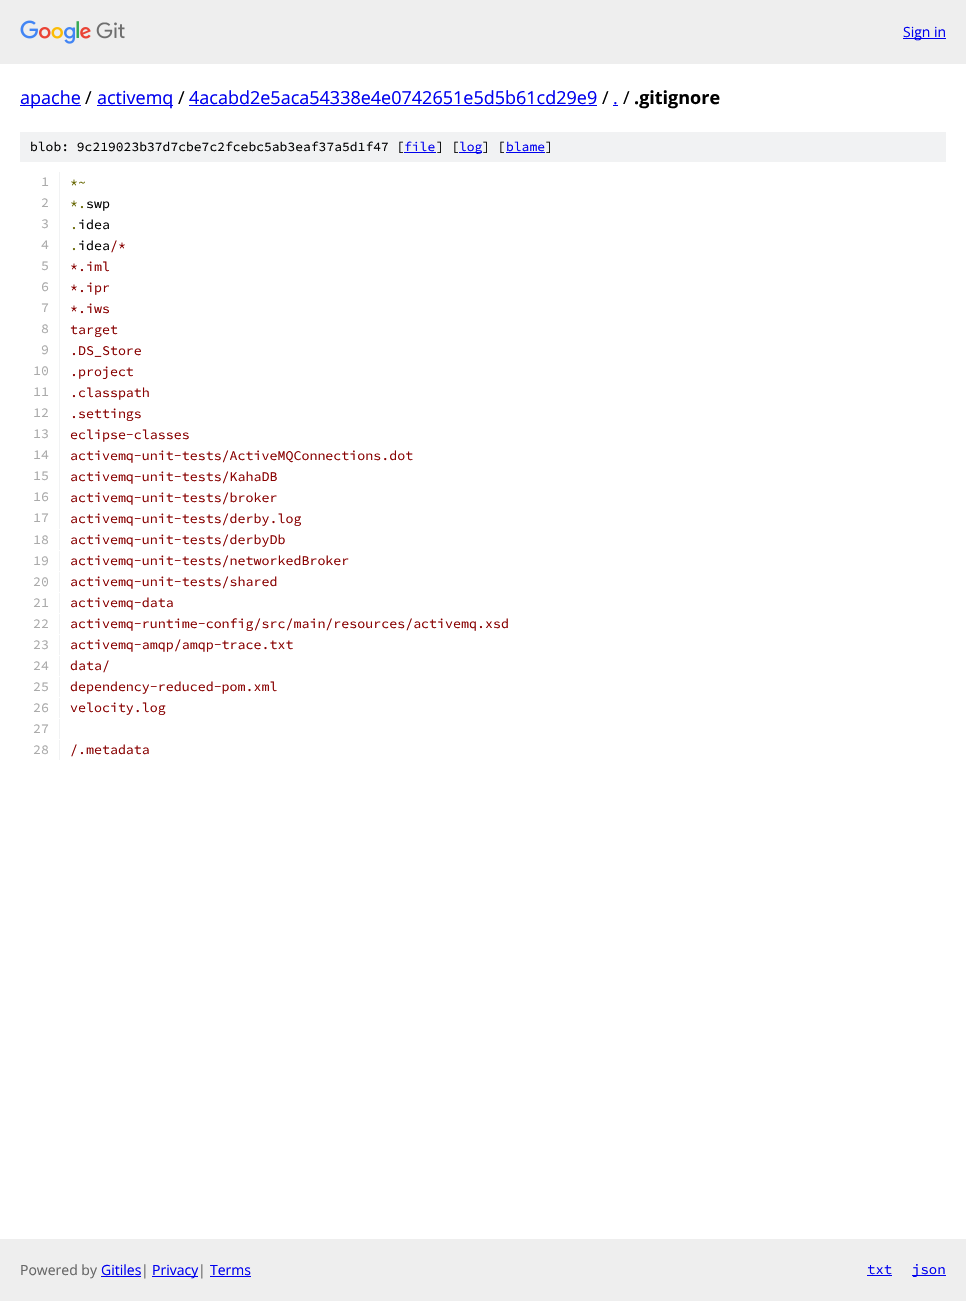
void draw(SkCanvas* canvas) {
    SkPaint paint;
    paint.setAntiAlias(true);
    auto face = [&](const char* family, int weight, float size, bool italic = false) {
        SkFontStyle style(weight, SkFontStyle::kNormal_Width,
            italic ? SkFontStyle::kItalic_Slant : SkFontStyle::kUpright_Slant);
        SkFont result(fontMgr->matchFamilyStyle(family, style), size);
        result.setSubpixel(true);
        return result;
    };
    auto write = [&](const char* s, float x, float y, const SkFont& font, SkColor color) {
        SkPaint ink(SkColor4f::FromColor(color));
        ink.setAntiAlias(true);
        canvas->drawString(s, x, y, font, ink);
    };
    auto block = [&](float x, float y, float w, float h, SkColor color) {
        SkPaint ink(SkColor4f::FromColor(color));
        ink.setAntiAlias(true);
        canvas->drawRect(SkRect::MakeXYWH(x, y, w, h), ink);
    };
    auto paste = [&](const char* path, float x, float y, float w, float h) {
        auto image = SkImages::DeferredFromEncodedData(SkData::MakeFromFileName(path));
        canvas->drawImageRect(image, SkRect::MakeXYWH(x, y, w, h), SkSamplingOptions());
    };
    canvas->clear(SK_ColorWHITE);
    block(0, 0, 966, 64, SkColorSetRGB(238, 238, 238));
    paste("pic1.png", 20, 20, 105, 24);
    block(903, 38, 43, 1, SkColorSetRGB(0, 0, 238));
    auto kFont1 = face("Open Sans", 400, 14);
    write("Sign in", 903, 37, kFont1, SkColorSetRGB(0, 0, 238));
    block(20, 105, 61, 1, SkColorSetRGB(0, 0, 238));
    auto kFont2 = face("Open Sans", 400, 18);
    write("apache", 20, 104, kFont2, SkColorSetRGB(0, 0, 238));
    write("/", 85, 104, kFont2, SK_ColorBLACK);
    block(97, 105, 76, 1, SkColorSetRGB(0, 0, 238));
    write("activemq", 97, 104, kFont2, SkColorSetRGB(0, 0, 238));
    write("/", 178, 104, kFont2, SK_ColorBLACK);
    write("4acabd2e5aca54338e4e0742651e5d5b61cd29e9", 189, 104, kFont2, SkColorSetRGB(0, 0, 238));
    block(189, 105, 408, 1, SkColorSetRGB(0, 0, 238));
    write("/", 602, 104, kFont2, SK_ColorBLACK);
    write(".", 613, 104, kFont2, SkColorSetRGB(0, 0, 238));
    block(613, 105, 5, 1, SkColorSetRGB(0, 0, 238));
    write("/", 623, 104, kFont2, SK_ColorBLACK);
    auto kFont3 = face("Open Sans", 700, 18);
    write(".gitignore", 634, 104, kFont3, SK_ColorBLACK);
    block(20, 132, 926, 30, SkColorSetRGB(241, 242, 243));
    auto kFont4 = face("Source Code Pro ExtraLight", 200, 13);
    write("blob: 9c219023b37d7cbe7c2fcebc5ab3eaf37a5d1f47 [", 30, 151, kFont4, SK_ColorBLACK);
    write("file", 404, 151, kFont4, SkColorSetRGB(0, 0, 238));
    block(404, 152, 32, 1, SkColorSetRGB(0, 0, 238));
    write("] [", 436, 151, kFont4, SK_ColorBLACK);
    block(459, 152, 23, 1, SkColorSetRGB(0, 0, 238));
    write("log", 459, 151, kFont4, SkColorSetRGB(0, 0, 238));
    write("] [", 482, 151, kFont4, SK_ColorBLACK);
    write("blame", 506, 151, kFont4, SkColorSetRGB(0, 0, 238));
    block(506, 152, 39, 1, SkColorSetRGB(0, 0, 238));
    write("]", 545, 151, kFont4, SK_ColorBLACK);
    block(59, 172, 1, 357, SkColorSetRGB(241, 242, 243));
    auto kFont5 = face("Source Code Pro ExtraLight", 200, 13.3f);
    write("1", 41, 186, kFont5, SkColorSetRGB(170, 170, 170));
    write("*~", 70, 187, kFont5, SkColorSetRGB(102, 102, 0));
    write("2", 41, 207, kFont5, SkColorSetRGB(170, 170, 170));
    write("*.", 70, 208, kFont5, SkColorSetRGB(102, 102, 0));
    write("swp", 86, 208, kFont5, SK_ColorBLACK);
    write("3", 41, 228, kFont5, SkColorSetRGB(170, 170, 170));
    write(".", 70, 229, kFont5, SkColorSetRGB(102, 102, 0));
    write("idea", 78, 229, kFont5, SK_ColorBLACK);
    write("4", 41, 249, kFont5, SkColorSetRGB(170, 170, 170));
    write(".", 70, 250, kFont5, SkColorSetRGB(102, 102, 0));
    write("idea", 78, 250, kFont5, SK_ColorBLACK);
    write("/*", 110, 250, kFont5, SkColorSetRGB(136, 0, 0));
    write("5", 41, 270, kFont5, SkColorSetRGB(170, 170, 170));
    write("*.iml", 70, 271, kFont5, SkColorSetRGB(136, 0, 0));
    write("6", 41, 291, kFont5, SkColorSetRGB(170, 170, 170));
    write("*.ipr", 70, 292, kFont5, SkColorSetRGB(136, 0, 0));
    write("7", 41, 312, kFont5, SkColorSetRGB(170, 170, 170));
    write("*.iws", 70, 313, kFont5, SkColorSetRGB(136, 0, 0));
    write("8", 41, 333, kFont5, SkColorSetRGB(170, 170, 170));
    write("target", 70, 334, kFont5, SkColorSetRGB(136, 0, 0));
    write("9", 41, 354, kFont5, SkColorSetRGB(170, 170, 170));
    write(".DS_Store", 70, 355, kFont5, SkColorSetRGB(136, 0, 0));
    write("10", 33, 375, kFont5, SkColorSetRGB(170, 170, 170));
    write(".project", 70, 376, kFont5, SkColorSetRGB(136, 0, 0));
    write("11", 33, 396, kFont5, SkColorSetRGB(170, 170, 170));
    write(".classpath", 70, 397, kFont5, SkColorSetRGB(136, 0, 0));
    write("12", 33, 417, kFont5, SkColorSetRGB(170, 170, 170));
    write(".settings", 70, 418, kFont5, SkColorSetRGB(136, 0, 0));
    write("13", 33, 438, kFont5, SkColorSetRGB(170, 170, 170));
    write("eclipse-classes", 70, 439, kFont5, SkColorSetRGB(136, 0, 0));
    write("14", 33, 459, kFont5, SkColorSetRGB(170, 170, 170));
    write("activemq-unit-tests/ActiveMQConnections.dot", 70, 460, kFont5, SkColorSetRGB(136, 0, 0));
    write("15", 33, 480, kFont5, SkColorSetRGB(170, 170, 170));
    write("activemq-unit-tests/KahaDB", 70, 481, kFont5, SkColorSetRGB(136, 0, 0));
    write("16", 33, 501, kFont5, SkColorSetRGB(170, 170, 170));
    write("activemq-unit-tests/broker", 70, 502, kFont5, SkColorSetRGB(136, 0, 0));
    write("17", 33, 522, kFont5, SkColorSetRGB(170, 170, 170));
    write("activemq-unit-tests/derby.log", 70, 523, kFont5, SkColorSetRGB(136, 0, 0));
    block(59, 530, 1, 20, SkColorSetRGB(241, 242, 243));
    write("18", 33, 544, kFont5, SkColorSetRGB(170, 170, 170));
    write("activemq-unit-tests/derbyDb", 70, 544, kFont5, SkColorSetRGB(136, 0, 0));
    block(59, 551, 1, 20, SkColorSetRGB(241, 242, 243));
    write("19", 33, 565, kFont5, SkColorSetRGB(170, 170, 170));
    write("activemq-unit-tests/networkedBroker", 70, 565, kFont5, SkColorSetRGB(136, 0, 0));
    block(59, 572, 1, 20, SkColorSetRGB(241, 242, 243));
    write("20", 33, 586, kFont5, SkColorSetRGB(170, 170, 170));
    write("activemq-unit-tests/shared", 70, 586, kFont5, SkColorSetRGB(136, 0, 0));
    block(59, 593, 1, 20, SkColorSetRGB(241, 242, 243));
    write("21", 33, 607, kFont5, SkColorSetRGB(170, 170, 170));
    write("activemq-data", 70, 607, kFont5, SkColorSetRGB(136, 0, 0));
    block(59, 614, 1, 20, SkColorSetRGB(241, 242, 243));
    write("22", 33, 628, kFont5, SkColorSetRGB(170, 170, 170));
    write("activemq-runtime-config/src/main/resources/activemq.xsd", 70, 628, kFont5, SkColorSetRGB(136, 0, 0));
    block(59, 635, 1, 20, SkColorSetRGB(241, 242, 243));
    write("23", 33, 649, kFont5, SkColorSetRGB(170, 170, 170));
    write("activemq-amqp/amqp-trace.txt", 70, 649, kFont5, SkColorSetRGB(136, 0, 0));
    block(59, 656, 1, 20, SkColorSetRGB(241, 242, 243));
    write("24", 33, 670, kFont5, SkColorSetRGB(170, 170, 170));
    write("data/", 70, 670, kFont5, SkColorSetRGB(136, 0, 0));
    block(59, 677, 1, 20, SkColorSetRGB(241, 242, 243));
    write("25", 33, 691, kFont5, SkColorSetRGB(170, 170, 170));
    write("dependency-reduced-pom.xml", 70, 691, kFont5, SkColorSetRGB(136, 0, 0));
    block(59, 698, 1, 20, SkColorSetRGB(241, 242, 243));
    write("26", 33, 712, kFont5, SkColorSetRGB(170, 170, 170));
    write("velocity.log", 70, 712, kFont5, SkColorSetRGB(136, 0, 0));
    block(59, 719, 1, 20, SkColorSetRGB(241, 242, 243));
    write("27", 33, 733, kFont5, SkColorSetRGB(170, 170, 170));
    block(59, 740, 1, 20, SkColorSetRGB(241, 242, 243));
    write("28", 33, 754, kFont5, SkColorSetRGB(170, 170, 170));
    write("/.metadata", 70, 754, kFont5, SkColorSetRGB(136, 0, 0));
    block(0, 1239, 966, 62, SkColorSetRGB(238, 238, 238));
    write("Powered by", 20, 1275, kFont1, SkColorSetRGB(102, 102, 102));
    write("Gitiles", 101, 1275, kFont1, SkColorSetRGB(0, 0, 238));
    block(101, 1276, 40, 1, SkColorSetRGB(0, 0, 238));
    write("|", 141, 1275, kFont1, SkColorSetRGB(102, 102, 102));
    block(152, 1276, 46, 1, SkColorSetRGB(0, 0, 238));
    write("Privacy", 152, 1275, kFont1, SkColorSetRGB(0, 0, 238));
    write("|", 198, 1275, kFont1, SkColorSetRGB(102, 102, 102));
    write("Terms", 210, 1275, kFont1, SkColorSetRGB(0, 0, 238));
    block(210, 1276, 41, 1, SkColorSetRGB(0, 0, 238));
    auto kFont6 = face("Source Code Pro ExtraLight", 200, 14);
    write("txt", 867, 1274, kFont6, SkColorSetRGB(0, 0, 238));
    block(867, 1275, 25, 1, SkColorSetRGB(0, 0, 238));
    block(912, 1275, 34, 1, SkColorSetRGB(0, 0, 238));
    write("json", 912, 1274, kFont6, SkColorSetRGB(0, 0, 238));
}
